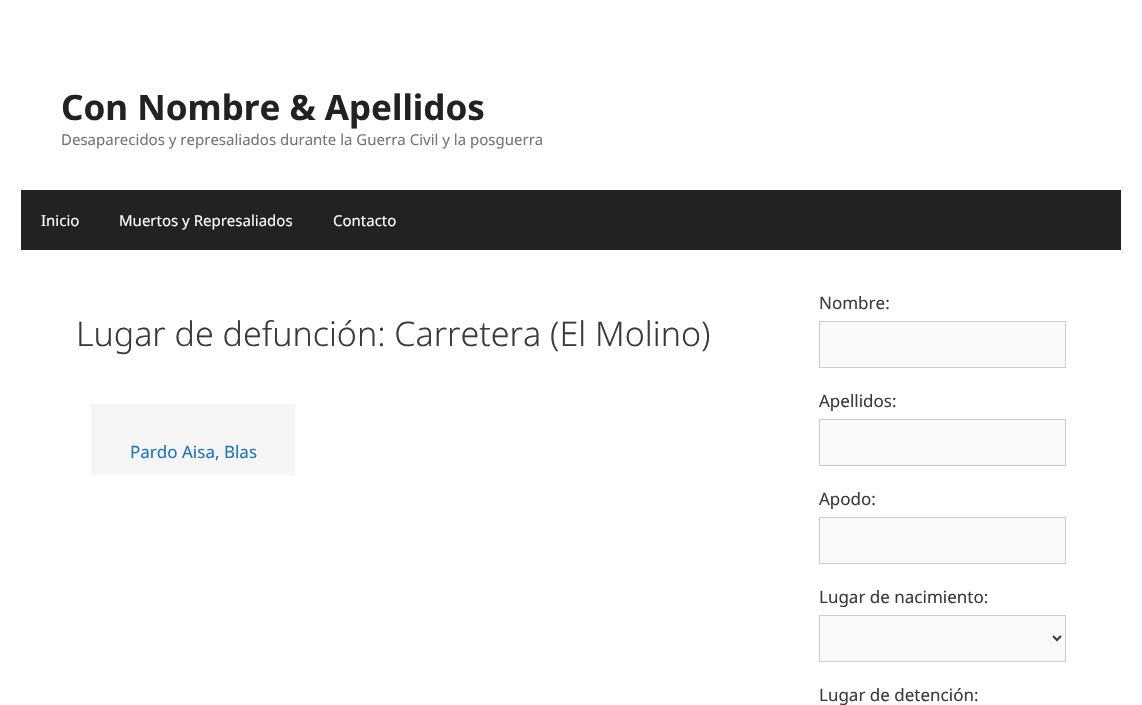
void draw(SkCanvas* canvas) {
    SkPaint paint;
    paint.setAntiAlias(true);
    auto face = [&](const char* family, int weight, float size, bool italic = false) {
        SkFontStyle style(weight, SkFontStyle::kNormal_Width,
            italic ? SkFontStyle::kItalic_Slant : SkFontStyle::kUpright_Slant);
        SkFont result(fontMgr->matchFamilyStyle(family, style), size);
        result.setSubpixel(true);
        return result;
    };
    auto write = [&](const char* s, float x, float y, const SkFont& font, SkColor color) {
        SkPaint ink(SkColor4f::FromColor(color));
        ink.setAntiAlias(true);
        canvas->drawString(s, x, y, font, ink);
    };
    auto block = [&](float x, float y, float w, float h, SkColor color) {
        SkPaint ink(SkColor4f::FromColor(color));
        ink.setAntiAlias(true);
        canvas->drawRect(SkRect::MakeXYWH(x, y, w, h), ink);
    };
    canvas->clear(SK_ColorWHITE);
    auto kFont1 = face("Noto Sans", 700, 35);
    write("Con Nombre & Apellidos", 61, 120, kFont1, SkColorSetRGB(34, 34, 34));
    auto kFont2 = face("Noto Sans", 400, 15);
    write("Desaparecidos y represaliados durante la Guerra Civil y la posguerra", 61, 145, kFont2, SkColorSetRGB(117, 117, 117));
    block(21, 190, 1100, 60, SkColorSetRGB(34, 34, 34));
    write("Inicio", 41, 226, kFont2, SK_ColorWHITE);
    write("Muertos y Represaliados", 119, 226, kFont2, SK_ColorWHITE);
    write("Contacto", 333, 226, kFont2, SK_ColorWHITE);
    auto kFont3 = face("Noto Sans", 300, 34);
    write("Lugar de defunción: Carretera (El Molino)", 76, 346, kFont3, SkColorSetRGB(58, 58, 58));
    block(91, 404, 204, 71, SkColorSetRGB(245, 245, 245));
    auto kFont4 = face("Noto Sans", 400, 17);
    write("Pardo Aisa, Blas", 130, 458, kFont4, SkColorSetRGB(30, 115, 190));
    write("Nombre:", 819, 309, kFont4, SkColorSetRGB(58, 58, 58));
    paint.setColor(SkColorSetRGB(250, 250, 250));
    canvas->drawRect(SkRect::MakeXYWH(819.5f, 321.5f, 246, 46), paint);
    paint.setStyle(SkPaint::kStroke_Style);
    paint.setStrokeWidth(1);
    paint.setColor(SkColorSetRGB(204, 204, 204));
    canvas->drawRect(SkRect::MakeXYWH(819.5f, 321.5f, 246, 46), paint);
    write("Apellidos:", 819, 407, kFont4, SkColorSetRGB(58, 58, 58));
    paint.setStyle(SkPaint::kFill_Style);
    paint.setColor(SkColorSetRGB(250, 250, 250));
    canvas->drawRect(SkRect::MakeXYWH(819.5f, 419.5f, 246, 46), paint);
    paint.setStyle(SkPaint::kStroke_Style);
    paint.setColor(SkColorSetRGB(204, 204, 204));
    canvas->drawRect(SkRect::MakeXYWH(819.5f, 419.5f, 246, 46), paint);
    write("Apodo:", 819, 505, kFont4, SkColorSetRGB(58, 58, 58));
    paint.setStyle(SkPaint::kFill_Style);
    paint.setColor(SkColorSetRGB(250, 250, 250));
    canvas->drawRect(SkRect::MakeXYWH(819.5f, 517.5f, 246, 46), paint);
    paint.setStyle(SkPaint::kStroke_Style);
    paint.setColor(SkColorSetRGB(204, 204, 204));
    canvas->drawRect(SkRect::MakeXYWH(819.5f, 517.5f, 246, 46), paint);
    write("Lugar de nacimiento:", 819, 603, kFont4, SkColorSetRGB(58, 58, 58));
    paint.setStyle(SkPaint::kFill_Style);
    paint.setColor(SkColorSetRGB(250, 250, 250));
    canvas->drawRect(SkRect::MakeXYWH(819.5f, 615.5f, 246, 46), paint);
    paint.setStyle(SkPaint::kStroke_Style);
    paint.setColor(SkColorSetRGB(204, 204, 204));
    canvas->drawRect(SkRect::MakeXYWH(819.5f, 615.5f, 246, 46), paint);
    paint.setStrokeWidth(2);
    paint.setColor(SkColorSetRGB(58, 58, 58));
    canvas->drawPath(SkPathBuilder().moveTo(1053, 636).lineTo(1057, 640).lineTo(1061, 636).detach(), paint);
    write("Lugar de detención:", 819, 701, kFont4, SkColorSetRGB(58, 58, 58));
}
